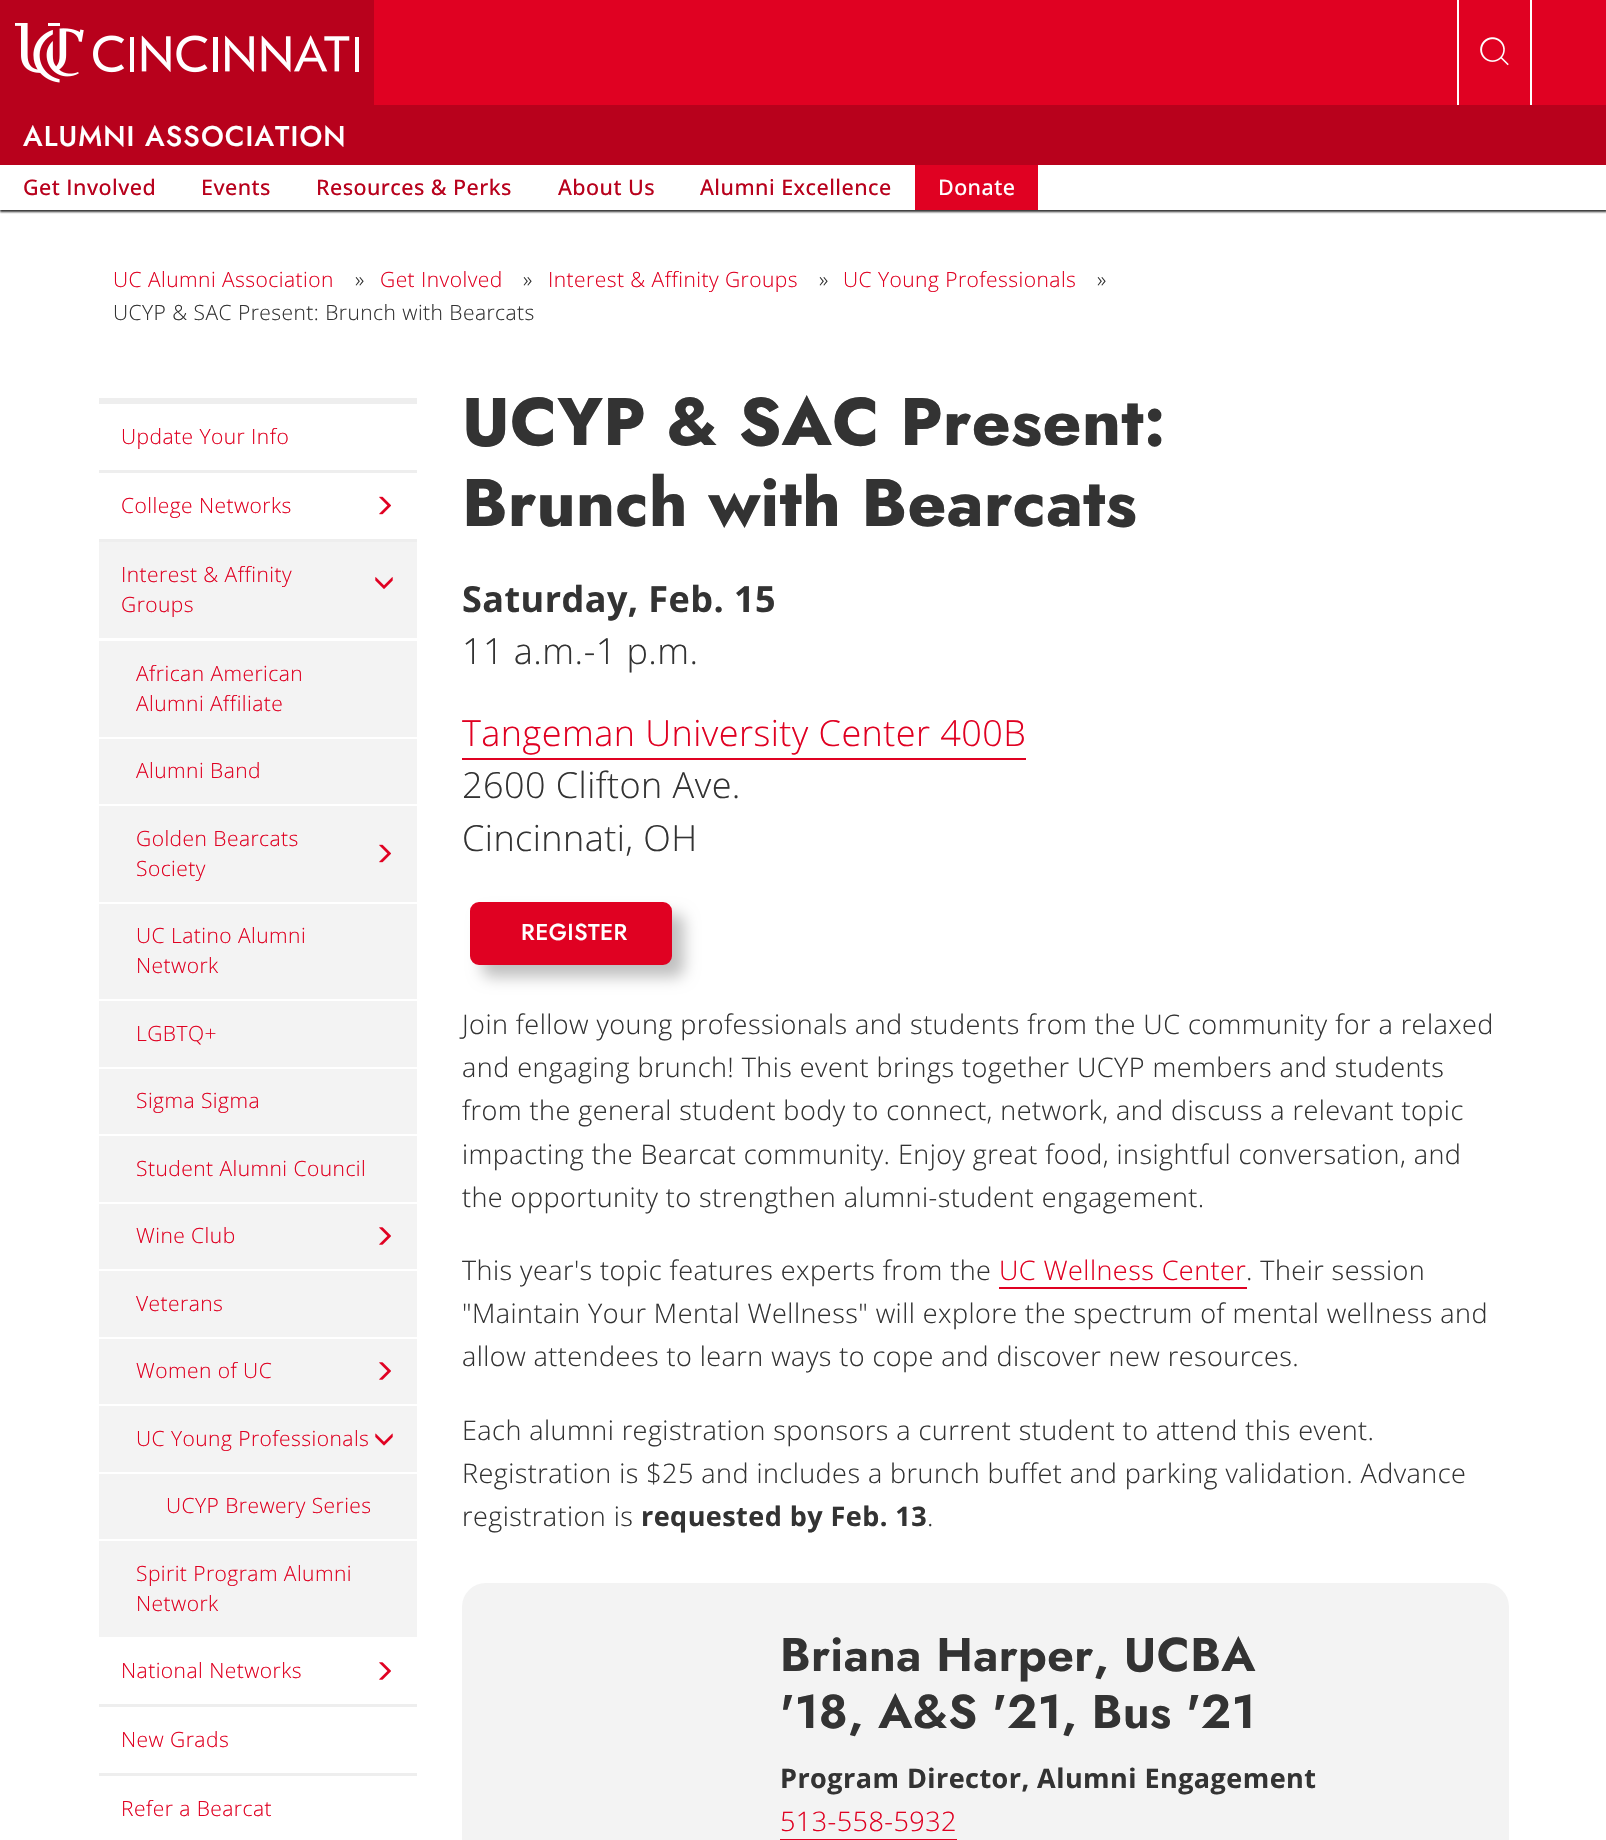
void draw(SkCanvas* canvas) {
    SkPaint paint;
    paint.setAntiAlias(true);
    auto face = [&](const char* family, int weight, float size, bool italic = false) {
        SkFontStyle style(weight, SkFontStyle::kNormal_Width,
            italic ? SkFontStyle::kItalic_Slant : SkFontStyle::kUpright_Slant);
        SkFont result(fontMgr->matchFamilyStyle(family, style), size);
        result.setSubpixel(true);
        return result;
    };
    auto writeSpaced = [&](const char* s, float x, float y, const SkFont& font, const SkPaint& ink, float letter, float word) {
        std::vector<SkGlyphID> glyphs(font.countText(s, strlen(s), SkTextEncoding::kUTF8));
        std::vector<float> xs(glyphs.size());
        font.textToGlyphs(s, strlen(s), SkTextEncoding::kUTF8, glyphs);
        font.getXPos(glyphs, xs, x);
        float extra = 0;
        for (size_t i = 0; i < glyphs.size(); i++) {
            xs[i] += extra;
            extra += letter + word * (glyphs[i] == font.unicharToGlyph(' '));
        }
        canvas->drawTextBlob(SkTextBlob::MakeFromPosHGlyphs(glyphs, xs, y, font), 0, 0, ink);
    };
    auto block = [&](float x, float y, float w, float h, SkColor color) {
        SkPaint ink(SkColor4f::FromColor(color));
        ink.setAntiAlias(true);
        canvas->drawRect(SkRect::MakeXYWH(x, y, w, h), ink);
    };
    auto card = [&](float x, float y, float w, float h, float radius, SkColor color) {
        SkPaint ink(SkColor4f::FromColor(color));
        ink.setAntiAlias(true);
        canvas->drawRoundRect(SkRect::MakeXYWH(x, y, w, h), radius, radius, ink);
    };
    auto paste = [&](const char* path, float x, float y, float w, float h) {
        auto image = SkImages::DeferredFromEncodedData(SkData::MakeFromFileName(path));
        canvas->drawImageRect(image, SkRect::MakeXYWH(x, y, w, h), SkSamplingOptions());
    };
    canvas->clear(SK_ColorWHITE);
    canvas->save();
    canvas->clipRect(SkRect::MakeXYWH(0, 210, 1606, 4));
    paint.setColor(SkColorSetRGB(51, 51, 51));
    paint.setMaskFilter(SkMaskFilter::MakeBlur(kNormal_SkBlurStyle, 1));
    canvas->drawRect(SkRect::MakeXYWH(0, 2, 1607, 210), paint);
    paint.setMaskFilter(nullptr);
    canvas->restore();
    block(374, 0, 1232, 105, SkColorSetRGB(224, 1, 34));
    block(0, 0, 374, 105, SkColorSetRGB(184, 1, 28));
    paste("pic1.png", 15, 23, 344, 60);
    block(1530, 0, 2, 105, SK_ColorWHITE);
    block(1457, 0, 2, 105, SK_ColorWHITE);
    paste("pic2.png", 1480, 37, 29, 29);
    block(0, 105, 1606, 60, SkColorSetRGB(184, 1, 28));
    auto kFont1 = face("Jost", 500, 28.4f);
    paint.setColor(SK_ColorWHITE);
    writeSpaced("ALUMNI ASSOCIATION", 23, 146, kFont1, paint, 1.1f, 0);
    auto kFont2 = face("Open Sans", 500, 21.5f);
    paint.setColor(SkColorSetRGB(184, 1, 28));
    writeSpaced("Get Involved", 23, 195, kFont2, paint, 0.45f, 0);
    writeSpaced("Events", 201, 195, kFont2, paint, 0.45f, 0);
    writeSpaced("Resources & Perks", 316, 195, kFont2, paint, 0.45f, 0);
    writeSpaced("About Us", 558, 195, kFont2, paint, 0.45f, 0);
    writeSpaced("Alumni Excellence", 700, 195, kFont2, paint, 0.45f, 0);
    block(915, 165, 123, 45, SkColorSetRGB(224, 1, 34));
    paint.setColor(SK_ColorWHITE);
    writeSpaced("Donate", 938, 195, kFont2, paint, 0.45f, 0);
    auto kFont3 = face("Open Sans", 300, 21);
    paint.setColor(SkColorSetRGB(224, 1, 34));
    writeSpaced("UC Alumni Association", 113, 287, kFont3, paint, 0.45f, 0);
    paint.setColor(SkColorSetRGB(51, 51, 51));
    writeSpaced("»", 355, 287, kFont3, paint, 0.45f, 0);
    paint.setColor(SkColorSetRGB(224, 1, 34));
    writeSpaced("Get Involved", 380, 287, kFont3, paint, 0.45f, 0);
    paint.setColor(SkColorSetRGB(51, 51, 51));
    writeSpaced("»", 523, 287, kFont3, paint, 0.45f, 0);
    paint.setColor(SkColorSetRGB(224, 1, 34));
    writeSpaced("Interest & Affinity Groups", 548, 287, kFont3, paint, 0.45f, 0);
    paint.setColor(SkColorSetRGB(51, 51, 51));
    writeSpaced("»", 819, 287, kFont3, paint, 0.45f, 0);
    paint.setColor(SkColorSetRGB(224, 1, 34));
    writeSpaced("UC Young Professionals", 843, 287, kFont3, paint, 0.45f, 0);
    paint.setColor(SkColorSetRGB(51, 51, 51));
    writeSpaced("»", 1097, 287, kFont3, paint, 0.45f, 0);
    writeSpaced("UCYP & SAC Present: Brunch with Bearcats", 113, 320, kFont3, paint, 0.45f, 0);
    block(99, 398, 318, 6, SkColorSetRGB(238, 238, 238));
    block(99, 470, 318, 3, SkColorSetRGB(238, 238, 238));
    paint.setColor(SkColorSetRGB(224, 1, 34));
    writeSpaced("Update Your Info", 121, 444, kFont3, paint, 0.45f, 0);
    block(99, 539, 318, 3, SkColorSetRGB(238, 238, 238));
    writeSpaced("College Networks", 121, 513, kFont3, paint, 0.45f, 0);
    paste("pic3.png", 379, 496, 12, 19);
    block(99, 542, 318, 96, SkColorSetRGB(243, 243, 243));
    writeSpaced("Interest & Affinity", 121, 582, kFont3, paint, 0.45f, 0);
    paste("pic4.png", 375, 577, 18, 12);
    writeSpaced("Groups", 121, 612, kFont3, paint, 0.45f, 0);
    block(99, 641, 318, 996, SkColorSetRGB(243, 243, 243));
    block(99, 737, 318, 2, SK_ColorWHITE);
    writeSpaced("African American", 136, 681, kFont3, paint, 0.45f, 0);
    writeSpaced("Alumni Affiliate", 136, 711, kFont3, paint, 0.45f, 0);
    block(99, 804, 318, 2, SK_ColorWHITE);
    writeSpaced("Alumni Band", 136, 778, kFont3, paint, 0.45f, 0);
    block(99, 902, 318, 2, SK_ColorWHITE);
    writeSpaced("Golden Bearcats", 136, 846, kFont3, paint, 0.45f, 0);
    paste("pic5.png", 379, 844, 12, 19);
    writeSpaced("Society", 136, 876, kFont3, paint, 0.45f, 0);
    block(99, 999, 318, 2, SK_ColorWHITE);
    writeSpaced("UC Latino Alumni", 136, 943, kFont3, paint, 0.45f, 0);
    writeSpaced("Network", 136, 973, kFont3, paint, 0.45f, 0);
    block(99, 1067, 318, 2, SK_ColorWHITE);
    writeSpaced("LGBTQ+", 136, 1041, kFont3, paint, 0.45f, 0);
    block(99, 1134, 318, 2, SK_ColorWHITE);
    writeSpaced("Sigma Sigma", 136, 1108, kFont3, paint, 0.45f, 0);
    block(99, 1202, 318, 2, SK_ColorWHITE);
    writeSpaced("Student Alumni Council", 136, 1176, kFont3, paint, 0.45f, 0);
    block(99, 1269, 318, 2, SK_ColorWHITE);
    writeSpaced("Wine Club", 136, 1243, kFont3, paint, 0.45f, 0);
    paste("pic6.png", 379, 1227, 12, 18);
    block(99, 1337, 318, 2, SK_ColorWHITE);
    writeSpaced("Veterans", 136, 1311, kFont3, paint, 0.45f, 0);
    block(99, 1404, 318, 2, SK_ColorWHITE);
    writeSpaced("Women of UC", 136, 1378, kFont3, paint, 0.45f, 0);
    paste("pic6.png", 379, 1362, 12, 18);
    block(99, 1472, 318, 2, SK_ColorWHITE);
    writeSpaced("UC Young Professionals", 136, 1446, kFont3, paint, 0.45f, 0);
    paste("pic7.png", 375, 1433, 18, 13);
    block(99, 1539, 318, 2, SK_ColorWHITE);
    writeSpaced("UCYP Brewery Series", 166, 1513, kFont3, paint, 0.45f, 0);
    writeSpaced("Spirit Program Alumni", 136, 1581, kFont3, paint, 0.45f, 0);
    writeSpaced("Network", 136, 1611, kFont3, paint, 0.45f, 0);
    block(99, 1704, 318, 3, SkColorSetRGB(238, 238, 238));
    writeSpaced("National Networks", 121, 1678, kFont3, paint, 0.45f, 0);
    paste("pic8.png", 379, 1662, 12, 18);
    block(99, 1773, 318, 3, SkColorSetRGB(238, 238, 238));
    writeSpaced("New Grads", 121, 1747, kFont3, paint, 0.45f, 0);
    writeSpaced("Refer a Bearcat", 121, 1816, kFont3, paint, 0.45f, 0);
    auto kFont4 = face("Jost", 700, 67);
    paint.setColor(SkColorSetRGB(51, 51, 51));
    writeSpaced("UCYP & SAC Present:", 462, 445, kFont4, paint, 0.4f, 0);
    writeSpaced("Brunch with Bearcats", 462, 526, kFont4, paint, 0.4f, 0);
    auto kFont5 = face("Open Sans", 700, 36);
    writeSpaced("Saturday, Feb. 15", 462, 612, kFont5, paint, 0.45f, 0);
    auto kFont6 = face("Open Sans", 300, 36);
    writeSpaced("11 a.m.-1 p.m.", 462, 664, kFont6, paint, 0.45f, 0);
    paint.setColor(SkColorSetRGB(224, 1, 34));
    writeSpaced("Tangeman University Center 400B", 462, 746, kFont6, paint, 0.45f, 0);
    block(462, 758, 564, 2, SkColorSetRGB(224, 1, 34));
    paint.setColor(SkColorSetRGB(51, 51, 51));
    writeSpaced("2600 Clifton Ave.", 462, 798, kFont6, paint, 0.45f, 0);
    writeSpaced("Cincinnati, OH", 462, 851, kFont6, paint, 0.45f, 0);
    paint.setColor(SkColorSetARGB(64, 0, 0, 0));
    paint.setMaskFilter(SkMaskFilter::MakeBlur(kNormal_SkBlurStyle, 7.5f));
    canvas->drawRoundRect(SkRect::MakeXYWH(482, 914, 202, 63), 9, 9, paint);
    paint.setMaskFilter(nullptr);
    paint.setColor(SkColorSetRGB(224, 1, 34));
    canvas->drawRoundRect(SkRect::MakeXYWH(471.5f, 903.5f, 199, 60), 7.5f, 7.5f, paint);
    paint.setStyle(SkPaint::kStroke_Style);
    paint.setStrokeWidth(3);
    canvas->drawRoundRect(SkRect::MakeXYWH(471.5f, 903.5f, 199, 60), 7.5f, 7.5f, paint);
    auto kFont7 = face("Jost", 500, 23);
    paint.setStyle(SkPaint::kFill_Style);
    paint.setColor(SK_ColorWHITE);
    writeSpaced("REGISTER", 521, 940, kFont7, paint, 0.45f, 0);
    auto kFont8 = face("Open Sans", 300, 27);
    paint.setColor(SkColorSetRGB(51, 51, 51));
    writeSpaced("Join fellow young professionals and students from the UC community for a relaxed", 462, 1034, kFont8, paint, 0.45f, 0);
    writeSpaced("and engaging brunch! This event brings together UCYP members and students", 462, 1077, kFont8, paint, 0.45f, 0);
    writeSpaced("from the general student body to connect, network, and discuss a relevant topic", 462, 1120, kFont8, paint, 0.45f, 0);
    writeSpaced("impacting the Bearcat community. Enjoy great food, insightful conversation, and", 462, 1164, kFont8, paint, 0.45f, 0);
    writeSpaced("the opportunity to strengthen alumni-student engagement.", 462, 1207, kFont8, paint, 0.45f, 0);
    writeSpaced("This year's topic features experts from the", 462, 1280, kFont8, paint, 0.45f, 0);
    paint.setColor(SkColorSetRGB(224, 1, 34));
    writeSpaced("UC Wellness Center", 999, 1280, kFont8, paint, 0.45f, 0);
    block(999, 1287, 248, 2, SkColorSetRGB(224, 1, 34));
    paint.setColor(SkColorSetRGB(51, 51, 51));
    writeSpaced(". Their session", 1246, 1280, kFont8, paint, 0.45f, 0);
    writeSpaced("\"Maintain Your Mental Wellness\" will explore the spectrum of mental wellness and", 462, 1323, kFont8, paint, 0.45f, 0);
    writeSpaced("allow attendees to learn ways to cope and discover new resources.", 462, 1366, kFont8, paint, 0.45f, 0);
    writeSpaced("Each alumni registration sponsors a current student to attend this event.", 462, 1440, kFont8, paint, 0.45f, 0);
    writeSpaced("Registration is $25 and includes a brunch buffet and parking validation. Advance", 462, 1483, kFont8, paint, 0.45f, 0);
    writeSpaced("registration is", 462, 1526, kFont8, paint, 0.45f, 0);
    auto kFont9 = face("Open Sans", 700, 27);
    writeSpaced("requested by Feb. 13", 641, 1526, kFont9, paint, 0.45f, 0);
    writeSpaced(".", 927, 1526, kFont8, paint, 0.45f, 0);
    card(462, 1583, 1047, 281, 24, SkColorSetRGB(243, 243, 243));
    auto kFont10 = face("Jost", 600, 47.25f);
    writeSpaced("Briana Harper, UCBA", 780, 1671, kFont10, paint, 0.4f, 0);
    writeSpaced("'18, A&S '21, Bus '21", 780, 1728, kFont10, paint, 0.4f, 0);
    writeSpaced("Program Director, Alumni Engagement", 780, 1788, kFont9, paint, 0.45f, 0);
    paint.setColor(SkColorSetRGB(224, 1, 34));
    writeSpaced("513-558-5932", 780, 1831, kFont8, paint, 0.45f, 0);
    block(780, 1839, 177, 1, SkColorSetRGB(224, 1, 34));
}
